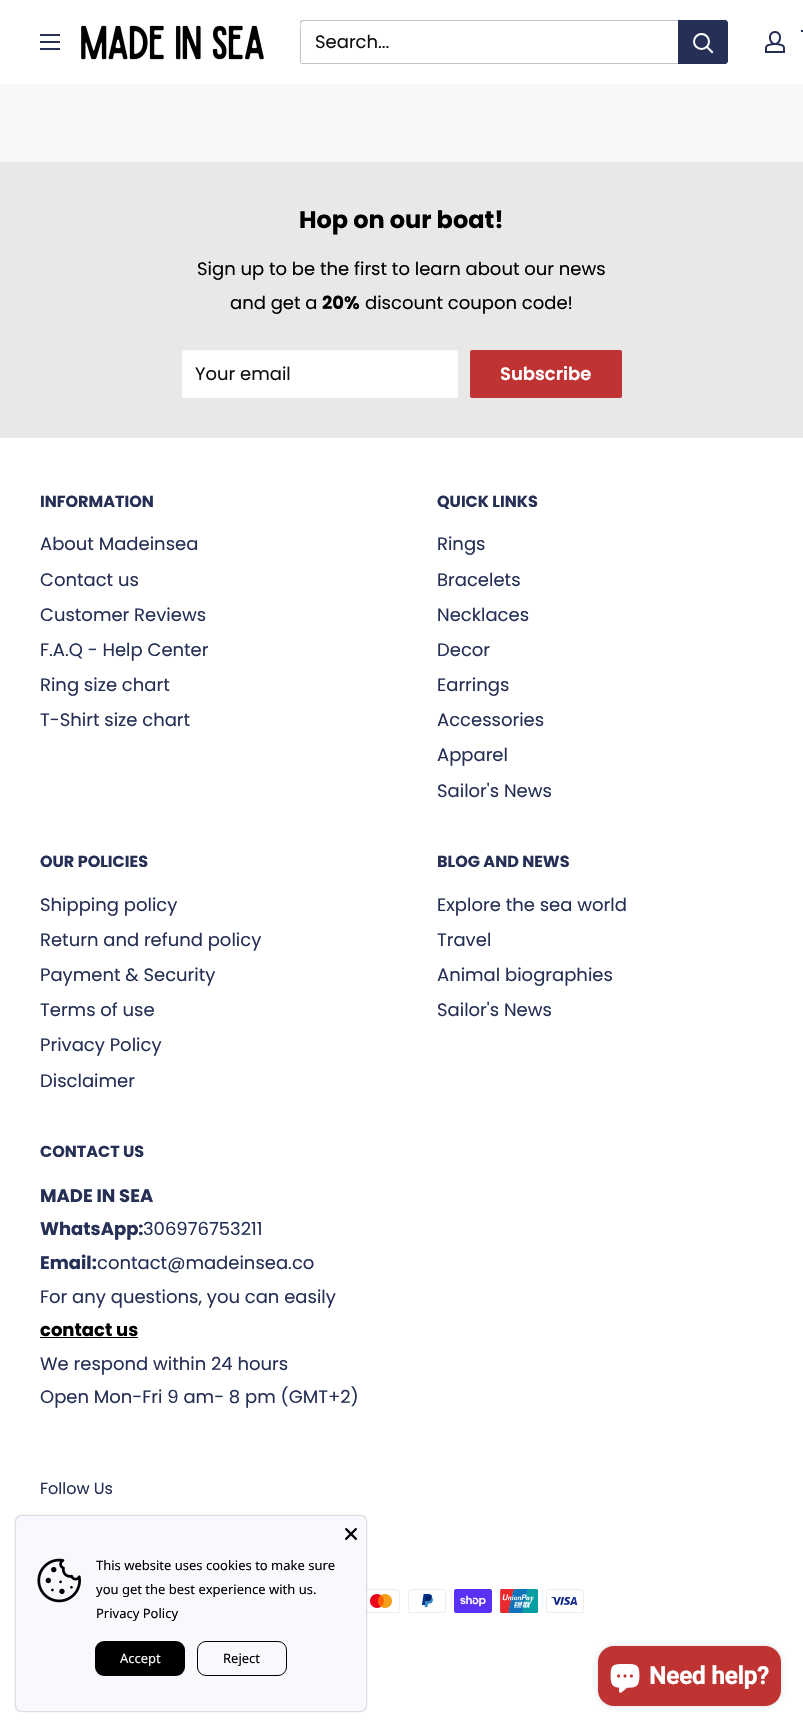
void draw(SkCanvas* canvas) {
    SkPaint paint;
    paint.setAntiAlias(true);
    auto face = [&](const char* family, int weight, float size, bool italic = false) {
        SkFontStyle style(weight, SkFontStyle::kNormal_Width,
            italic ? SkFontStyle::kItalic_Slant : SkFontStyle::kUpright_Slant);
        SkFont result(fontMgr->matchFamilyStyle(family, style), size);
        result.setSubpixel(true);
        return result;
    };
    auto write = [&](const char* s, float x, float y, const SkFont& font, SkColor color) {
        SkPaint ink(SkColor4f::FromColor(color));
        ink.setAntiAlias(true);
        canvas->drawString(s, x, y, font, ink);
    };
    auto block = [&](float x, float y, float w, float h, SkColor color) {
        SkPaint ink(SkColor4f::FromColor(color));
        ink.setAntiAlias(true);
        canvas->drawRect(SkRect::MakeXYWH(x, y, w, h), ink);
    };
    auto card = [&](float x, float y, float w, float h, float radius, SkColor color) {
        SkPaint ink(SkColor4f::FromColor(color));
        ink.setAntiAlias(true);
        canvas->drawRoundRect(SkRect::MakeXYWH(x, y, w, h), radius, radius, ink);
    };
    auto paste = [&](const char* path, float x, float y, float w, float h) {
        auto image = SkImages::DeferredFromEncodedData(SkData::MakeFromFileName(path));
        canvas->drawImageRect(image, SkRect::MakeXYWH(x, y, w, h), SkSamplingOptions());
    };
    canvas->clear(SkColorSetRGB(250, 247, 247));
    block(0, 0, 803, 84, SK_ColorWHITE);
    paste("pic1.png", 40, 34, 20, 16);
    paste("pic2.png", 81, 25, 183, 35);
    paint.setColor(SkColorSetRGB(190, 193, 204));
    canvas->drawPath(SkPathBuilder().moveTo(301, 63).cubicTo(301, 64, 302, 64, 303, 64).lineTo(725, 64).cubicTo(727, 64, 728, 63, 728, 61).lineTo(728, 23).cubicTo(728, 22, 728, 21, 727, 21).lineTo(727, 54).cubicTo(727, 56, 729, 63, 724, 63).close().detach(), paint);
    canvas->drawPath(SkPathBuilder().moveTo(304, 21).lineTo(727, 21).cubicTo(727, 20, 726, 20, 725, 20).lineTo(303, 20).cubicTo(301, 20, 300, 21, 300, 23).lineTo(300, 61).cubicTo(300, 62, 300, 63, 301, 63).lineTo(301, 30).cubicTo(301, 28, 299, 21, 304, 21).close().detach(), paint);
    auto kFont1 = face("Poppins", 400, 18);
    write("Search...", 315, 48, kFont1, SkColorSetRGB(16, 16, 16));
    paint.setColor(SkColorSetRGB(38, 48, 86));
    canvas->drawPath(SkPathBuilder().moveTo(678, 20).lineTo(725, 20).cubicTo(726.5f, 20, 728, 21.5f, 728, 23).lineTo(728, 61).cubicTo(728, 62.5f, 726.5f, 64, 725, 64).lineTo(678, 64).close().detach(), paint);
    paint.setStyle(SkPaint::kStroke_Style);
    paint.setStrokeWidth(2);
    paint.setStrokeCap(SkPaint::kSquare_Cap);
    paint.setColor(SK_ColorWHITE);
    canvas->drawPath(SkPathBuilder().moveTo(712, 52).lineTo(707, 47).detach(), paint);
    paint.setStrokeCap(SkPaint::kButt_Cap);
    canvas->drawCircle(701.5f, 41.5f, 7.5f, paint);
    paste("pic3.png", 765, 31, 20, 22);
    paint.setColor(SkColorSetRGB(38, 48, 86));
    canvas->drawPath(SkPathBuilder().moveTo(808.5f, 36).lineTo(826.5f, 36).lineTo(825, 46).lineTo(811, 46).lineTo(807, 31).lineTo(801, 31).detach(), paint);
    block(0, 162, 803, 276, SkColorSetRGB(232, 232, 232));
    auto kFont2 = face("Poppins", 700, 24);
    write("Hop on our boat!", 299, 228, kFont2, SK_ColorBLACK);
    write("Sign up to be the first to learn about our news", 197, 275, kFont1, SK_ColorBLACK);
    write("and get a", 230, 309, kFont1, SK_ColorBLACK);
    auto kFont3 = face("Poppins", 700, 18);
    write("20%", 322, 309, kFont3, SK_ColorBLACK);
    write("discount coupon code!", 365, 309, kFont1, SK_ColorBLACK);
    card(182, 350, 276, 48, 2, SK_ColorWHITE);
    paint.setStyle(SkPaint::kFill_Style);
    paint.setColor(SkColorSetARGB(64, 232, 232, 232));
    canvas->drawPath(SkPathBuilder().moveTo(184, 351).lineTo(456, 351).cubicTo(457, 351, 458, 352, 458, 353).lineTo(458, 351).lineTo(456, 350).lineTo(184, 350).cubicTo(182, 350, 182, 352, 182, 353).cubicTo(182, 352, 183, 351, 184, 351).close().detach(), paint);
    write("Your email", 195, 380, kFont1, SkColorSetRGB(16, 16, 16));
    card(470, 350, 152, 48, 2, SkColorSetRGB(191, 51, 51));
    auto kFont4 = face("Poppins", 600, 18);
    write("Subscribe", 500, 380, kFont4, SK_ColorWHITE);
    block(0, 438, 803, 1289, SK_ColorWHITE);
    auto kFont5 = face("Poppins", 700, 16);
    write("INFORMATION", 40, 507, kFont5, SkColorSetRGB(38, 48, 86));
    write("About Madeinsea", 40, 550, kFont1, SkColorSetRGB(38, 48, 86));
    write("Contact us", 40, 586, kFont1, SkColorSetRGB(38, 48, 86));
    write("Customer Reviews", 40, 621, kFont1, SkColorSetRGB(38, 48, 86));
    write("F.A.Q - Help Center", 40, 656, kFont1, SkColorSetRGB(38, 48, 86));
    write("Ring size chart", 40, 691, kFont1, SkColorSetRGB(38, 48, 86));
    write("T-Shirt size chart", 40, 726, kFont1, SkColorSetRGB(38, 48, 86));
    write("QUICK LINKS", 437, 507, kFont5, SkColorSetRGB(38, 48, 86));
    write("Rings", 437, 550, kFont1, SkColorSetRGB(38, 48, 86));
    write("Bracelets", 437, 586, kFont1, SkColorSetRGB(38, 48, 86));
    write("Necklaces", 437, 621, kFont1, SkColorSetRGB(38, 48, 86));
    write("Decor", 437, 656, kFont1, SkColorSetRGB(38, 48, 86));
    write("Earrings", 437, 691, kFont1, SkColorSetRGB(38, 48, 86));
    write("Accessories", 437, 726, kFont1, SkColorSetRGB(38, 48, 86));
    write("Apparel", 437, 761, kFont1, SkColorSetRGB(38, 48, 86));
    write("Sailor's News", 437, 797, kFont1, SkColorSetRGB(38, 48, 86));
    write("OUR POLICIES", 40, 867, kFont5, SkColorSetRGB(38, 48, 86));
    write("Shipping policy", 40, 911, kFont1, SkColorSetRGB(38, 48, 86));
    write("Return and refund policy", 40, 946, kFont1, SkColorSetRGB(38, 48, 86));
    write("Payment & Security", 40, 981, kFont1, SkColorSetRGB(38, 48, 86));
    write("Terms of use", 40, 1016, kFont1, SkColorSetRGB(38, 48, 86));
    write("Privacy Policy", 40, 1051, kFont1, SkColorSetRGB(38, 48, 86));
    write("Disclaimer", 40, 1087, kFont1, SkColorSetRGB(38, 48, 86));
    write("BLOG AND NEWS", 437, 867, kFont5, SkColorSetRGB(38, 48, 86));
    write("Explore the sea world", 437, 911, kFont1, SkColorSetRGB(38, 48, 86));
    write("Travel", 437, 946, kFont1, SkColorSetRGB(38, 48, 86));
    write("Animal biographies", 437, 981, kFont1, SkColorSetRGB(38, 48, 86));
    write("Sailor's News", 437, 1016, kFont1, SkColorSetRGB(38, 48, 86));
    write("CONTACT US", 40, 1157, kFont5, SkColorSetRGB(38, 48, 86));
    write("MADE IN SEA", 40, 1202, kFont3, SkColorSetRGB(38, 48, 86));
    write("WhatsApp:", 40, 1235, kFont3, SkColorSetRGB(38, 48, 86));
    write("306976753211", 143, 1235, kFont1, SkColorSetRGB(38, 48, 86));
    write("Email:", 40, 1269, kFont3, SkColorSetRGB(38, 48, 86));
    write("contact@madeinsea.co", 97, 1269, kFont1, SkColorSetRGB(38, 48, 86));
    write("For any questions, you can easily", 40, 1303, kFont1, SkColorSetRGB(38, 48, 86));
    write("contact us", 40, 1336, kFont3, SK_ColorBLACK);
    block(40, 1337, 98, 1, SK_ColorBLACK);
    write("We respond within 24 hours", 40, 1370, kFont1, SkColorSetRGB(38, 48, 86));
    write("Open Mon-Fri 9 am- 8 pm (GMT+2)", 40, 1403, kFont1, SkColorSetRGB(38, 48, 86));
    auto kFont6 = face("Poppins", 400, 16);
    write("Follow Us", 40, 1494, kFont6, SkColorSetRGB(38, 48, 86));
    paste("pic4.png", 366, 1589, 34, 24);
    paste("pic5.png", 408, 1589, 38, 24);
    paste("pic6.png", 454, 1589, 38, 24);
    paste("pic7.png", 500, 1589, 38, 24);
    paste("pic8.png", 546, 1589, 38, 24);
    paint.setColor(SkColorSetARGB(128, 0, 0, 0));
    paint.setMaskFilter(SkMaskFilter::MakeBlur(kNormal_SkBlurStyle, 1));
    canvas->drawRoundRect(SkRect::MakeXYWH(16, 1516, 350, 195), 5, 5, paint);
    paint.setMaskFilter(nullptr);
    card(16, 1516, 350, 195, 5, SkColorSetRGB(248, 248, 255));
    paste("pic9.png", 345, 1528, 12, 12);
    paste("pic10.png", 37, 1558, 44, 45);
    auto kFont7 = face("Noto Sans", 400, 13);
    write("This website uses cookies to make sure", 96, 1570, kFont7, SK_ColorBLACK);
    write("you get the best experience with us.", 96, 1594, kFont7, SK_ColorBLACK);
    write("Privacy Policy", 96, 1618, kFont7, SK_ColorBLACK);
    card(95, 1641, 90, 35, 9, SK_ColorBLACK);
    write("Accept", 120, 1663, kFont7, SkColorSetRGB(248, 248, 248));
    paint.setStyle(SkPaint::kStroke_Style);
    paint.setStrokeWidth(1);
    paint.setColor(SK_ColorBLACK);
    canvas->drawRoundRect(SkRect::MakeXYWH(197.5f, 1641.5f, 89, 34), 8.5f, 8.5f, paint);
    write("Reject", 223, 1663, kFont7, SK_ColorBLACK);
    paint.setStyle(SkPaint::kFill_Style);
    paint.setColor(SkColorSetARGB(38, 0, 0, 0));
    paint.setMaskFilter(SkMaskFilter::MakeBlur(kNormal_SkBlurStyle, 2.5f));
    canvas->drawRoundRect(SkRect::MakeXYWH(598, 1646, 183, 60), 16, 16, paint);
    paint.setMaskFilter(nullptr);
    card(598, 1646, 183, 60, 16, SkColorSetRGB(191, 51, 51));
    paste("pic11.png", 610, 1664, 30, 29);
    auto kFont8 = face("Roboto", 700, 24);
    write("Need help?", 649, 1684, kFont8, SK_ColorWHITE);
}
